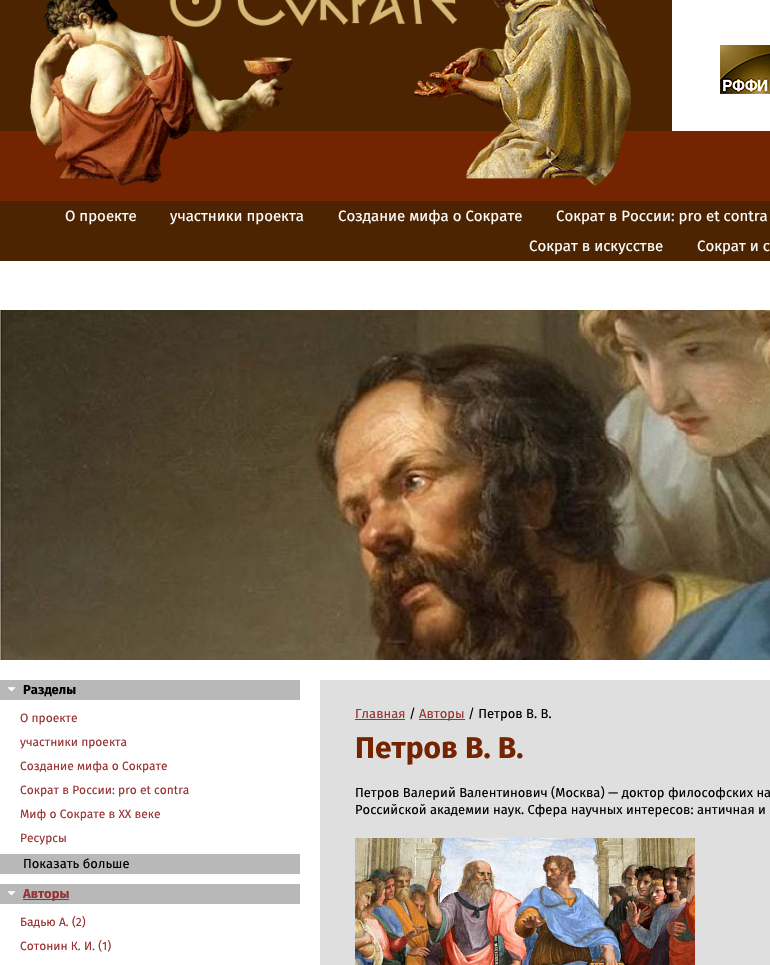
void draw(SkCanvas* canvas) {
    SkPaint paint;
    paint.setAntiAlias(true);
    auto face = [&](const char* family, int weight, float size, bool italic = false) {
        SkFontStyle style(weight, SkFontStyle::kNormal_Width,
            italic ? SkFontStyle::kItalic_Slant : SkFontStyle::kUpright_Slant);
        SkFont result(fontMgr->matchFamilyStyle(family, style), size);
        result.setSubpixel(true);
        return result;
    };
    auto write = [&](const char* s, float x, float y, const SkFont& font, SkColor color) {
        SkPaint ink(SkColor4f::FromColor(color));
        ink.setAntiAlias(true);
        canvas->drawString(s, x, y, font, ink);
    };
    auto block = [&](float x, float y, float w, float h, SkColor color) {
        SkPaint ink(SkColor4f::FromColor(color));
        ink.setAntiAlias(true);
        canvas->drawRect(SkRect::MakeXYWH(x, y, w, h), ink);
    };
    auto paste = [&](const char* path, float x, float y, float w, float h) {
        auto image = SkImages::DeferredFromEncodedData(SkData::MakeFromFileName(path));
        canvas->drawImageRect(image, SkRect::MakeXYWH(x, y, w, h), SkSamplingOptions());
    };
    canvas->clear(SK_ColorWHITE);
    block(0, 0, 672, 131, SkColorSetRGB(76, 36, 1));
    block(0, 131, 770, 70, SkColorSetRGB(116, 36, 1));
    paste("pic1.png", 30, 0, 601, 186);
    paste("pic2.png", 720, 45, 50, 49);
    block(0, 201, 770, 60, SkColorSetRGB(76, 36, 1));
    auto kFont1 = face("Fira Sans", 400, 15);
    write("О проекте", 65, 221, kFont1, SK_ColorWHITE);
    write("участники проекта", 170, 221, kFont1, SK_ColorWHITE);
    write("Создание мифа о Сократе", 338, 221, kFont1, SK_ColorWHITE);
    write("Сократ в России: pro et contra", 556, 221, kFont1, SK_ColorWHITE);
    write("Сократ в искусстве", 529, 251, kFont1, SK_ColorWHITE);
    write("Сократ и с", 697, 251, kFont1, SK_ColorWHITE);
    paste("pic3.png", 0, 310, 770, 350);
    block(0, 680, 300, 20, SkColorSetRGB(185, 184, 184));
    paste("pic4.png", 7, 687, 9, 5);
    auto kFont2 = face("Fira Sans", 700, 13);
    write("Разделы", 23, 694, kFont2, SK_ColorBLACK);
    auto kFont3 = face("Fira Sans", 400, 12);
    write("О проекте", 20, 722, kFont3, SkColorSetRGB(153, 51, 51));
    write("участники проекта", 20, 746, kFont3, SkColorSetRGB(153, 51, 51));
    write("Создание мифа о Сократе", 20, 770, kFont3, SkColorSetRGB(153, 51, 51));
    write("Сократ в России: pro et contra", 20, 794, kFont3, SkColorSetRGB(153, 51, 51));
    write("Миф о Сократе в XX веке", 20, 818, kFont3, SkColorSetRGB(153, 51, 51));
    write("Ресурсы", 20, 842, kFont3, SkColorSetRGB(153, 51, 51));
    block(0, 854, 300, 20, SkColorSetRGB(185, 184, 184));
    auto kFont4 = face("Fira Sans", 400, 13);
    write("Показать больше", 23, 868, kFont4, SK_ColorBLACK);
    block(0, 884, 300, 20, SkColorSetRGB(185, 184, 184));
    paste("pic4.png", 7, 891, 9, 5);
    block(23, 899, 46, 1, SkColorSetRGB(153, 51, 51));
    write("Авторы", 23, 898, kFont2, SkColorSetRGB(153, 51, 51));
    write("Бадью А. (2)", 20, 926, kFont3, SkColorSetRGB(153, 51, 51));
    write("Сотонин К. И. (1)", 20, 950, kFont3, SkColorSetRGB(153, 51, 51));
    block(320, 680, 450, 285, SkColorSetRGB(224, 223, 223));
    write("Главная", 355, 718, kFont4, SkColorSetRGB(153, 51, 51));
    block(355, 719, 50, 1, SkColorSetRGB(153, 51, 51));
    write("/", 409, 718, kFont4, SK_ColorBLACK);
    block(419, 719, 46, 1, SkColorSetRGB(153, 51, 51));
    write("Авторы", 419, 718, kFont4, SkColorSetRGB(153, 51, 51));
    write("/ Петров В. В.", 468, 718, kFont4, SK_ColorBLACK);
    auto kFont5 = face("Fira Sans", 700, 30);
    write("Петров В. В.", 355, 758, kFont5, SkColorSetRGB(116, 36, 1));
    write("Петров Валерий Валентинович (Москва) — доктор философских на", 355, 797, kFont4, SK_ColorBLACK);
    write("Российской академии наук. Сфера научных интересов: античная и", 355, 814, kFont4, SK_ColorBLACK);
    paste("pic5.png", 355, 838, 340, 127);
}
